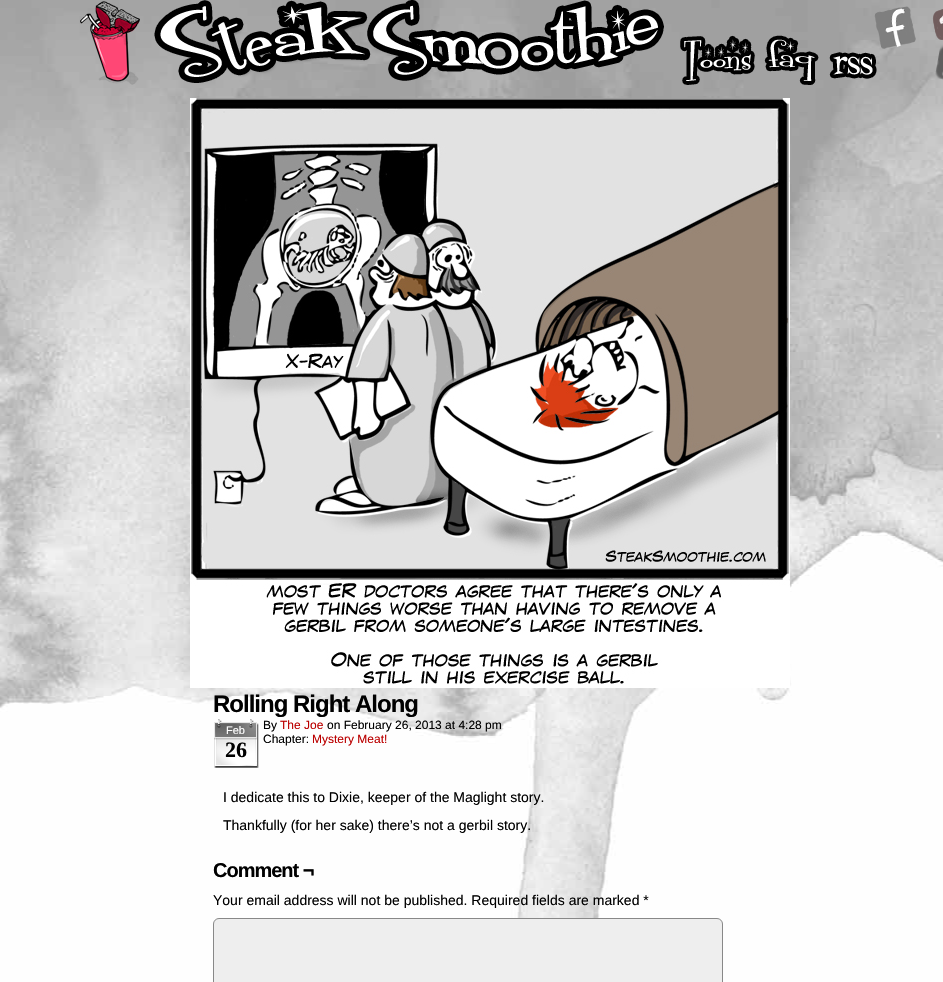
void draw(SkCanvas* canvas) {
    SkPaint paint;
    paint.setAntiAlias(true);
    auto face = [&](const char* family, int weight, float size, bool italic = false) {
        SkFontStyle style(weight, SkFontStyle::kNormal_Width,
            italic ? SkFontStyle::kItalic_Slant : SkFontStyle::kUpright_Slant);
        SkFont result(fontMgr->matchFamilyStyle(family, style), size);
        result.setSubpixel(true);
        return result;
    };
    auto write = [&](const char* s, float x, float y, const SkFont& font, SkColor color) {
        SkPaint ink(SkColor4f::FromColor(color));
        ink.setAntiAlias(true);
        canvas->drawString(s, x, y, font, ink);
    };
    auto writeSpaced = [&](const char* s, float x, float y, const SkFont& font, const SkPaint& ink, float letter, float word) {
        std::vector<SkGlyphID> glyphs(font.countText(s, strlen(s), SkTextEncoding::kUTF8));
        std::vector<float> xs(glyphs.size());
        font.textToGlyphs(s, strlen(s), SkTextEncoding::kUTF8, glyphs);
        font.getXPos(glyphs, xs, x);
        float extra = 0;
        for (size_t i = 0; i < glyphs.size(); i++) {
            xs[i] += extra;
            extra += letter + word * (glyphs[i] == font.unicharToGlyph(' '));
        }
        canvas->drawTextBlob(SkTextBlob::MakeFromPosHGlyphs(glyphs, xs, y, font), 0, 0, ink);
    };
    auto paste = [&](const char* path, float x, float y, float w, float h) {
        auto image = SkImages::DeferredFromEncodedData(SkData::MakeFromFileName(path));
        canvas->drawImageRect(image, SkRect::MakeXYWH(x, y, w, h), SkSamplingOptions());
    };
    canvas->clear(SK_ColorWHITE);
    paste("pic1.png", 0, 0, 943, 982);
    paste("pic2.png", 80, 0, 863, 85);
    paste("pic3.png", 190, 98, 600, 590);
    auto kFont1 = face("Liberation Sans", 700, 24);
    paint.setColor(SK_ColorBLACK);
    writeSpaced("Rolling Right Along", 213, 712, kFont1, paint, -1, 0);
    paste("pic4.png", 214, 719, 45, 49);
    auto kFont2 = face("Liberation Sans", 400, 11);
    write("Feb", 226, 734, kFont2, SK_ColorWHITE);
    auto kFont3 = face("Liberation Serif", 700, 22);
    write("26", 225, 757, kFont3, SK_ColorBLACK);
    auto kFont4 = face("Liberation Sans", 400, 12);
    write("By", 263, 729, kFont4, SK_ColorBLACK);
    write("The Joe", 280, 729, kFont4, SkColorSetRGB(187, 0, 0));
    write("on February 26, 2013 at 4:28 pm", 327, 729, kFont4, SK_ColorBLACK);
    write("Chapter:", 263, 743, kFont4, SK_ColorBLACK);
    write("Mystery Meat!", 312, 743, kFont4, SkColorSetRGB(187, 0, 0));
    auto kFont5 = face("Liberation Sans", 400, 14);
    write("I dedicate this to Dixie, keeper of the Maglight story.", 223, 802, kFont5, SK_ColorBLACK);
    write("Thankfully (for her sake) there’s not a gerbil story.", 223, 830, kFont5, SK_ColorBLACK);
    auto kFont6 = face("Liberation Sans", 700, 20);
    writeSpaced("Comment ¬", 213, 877, kFont6, paint, -1, 0);
    write("Your email address will not be published. Required fields are marked *", 213, 905, kFont5, SK_ColorBLACK);
    paint.setColor(SkColorSetRGB(238, 238, 238));
    canvas->drawRoundRect(SkRect::MakeXYWH(213.5f, 918.5f, 509, 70), 5.5f, 5.5f, paint);
    paint.setStyle(SkPaint::kStroke_Style);
    paint.setStrokeWidth(1);
    paint.setColor(SkColorSetRGB(136, 136, 136));
    canvas->drawRoundRect(SkRect::MakeXYWH(213.5f, 918.5f, 509, 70), 5.5f, 5.5f, paint);
}
